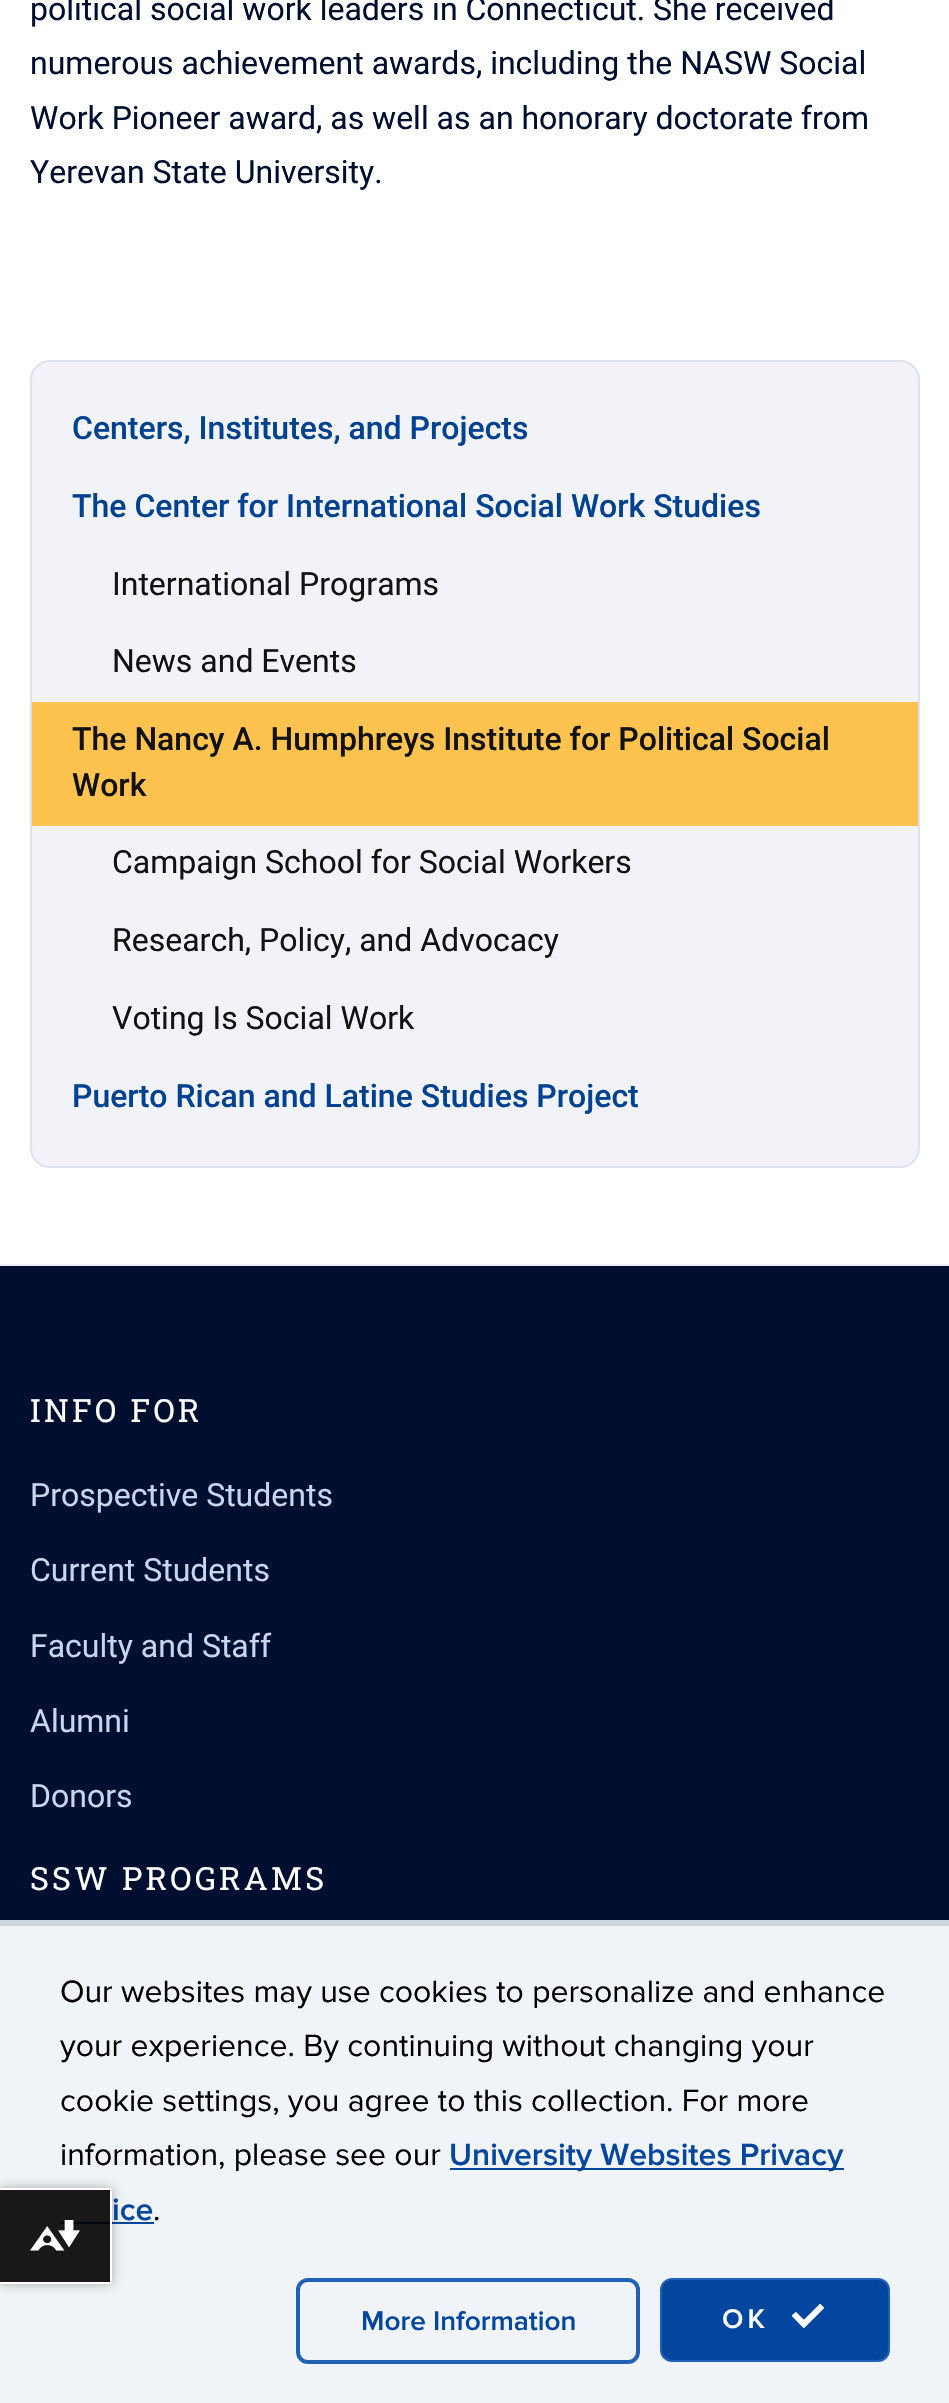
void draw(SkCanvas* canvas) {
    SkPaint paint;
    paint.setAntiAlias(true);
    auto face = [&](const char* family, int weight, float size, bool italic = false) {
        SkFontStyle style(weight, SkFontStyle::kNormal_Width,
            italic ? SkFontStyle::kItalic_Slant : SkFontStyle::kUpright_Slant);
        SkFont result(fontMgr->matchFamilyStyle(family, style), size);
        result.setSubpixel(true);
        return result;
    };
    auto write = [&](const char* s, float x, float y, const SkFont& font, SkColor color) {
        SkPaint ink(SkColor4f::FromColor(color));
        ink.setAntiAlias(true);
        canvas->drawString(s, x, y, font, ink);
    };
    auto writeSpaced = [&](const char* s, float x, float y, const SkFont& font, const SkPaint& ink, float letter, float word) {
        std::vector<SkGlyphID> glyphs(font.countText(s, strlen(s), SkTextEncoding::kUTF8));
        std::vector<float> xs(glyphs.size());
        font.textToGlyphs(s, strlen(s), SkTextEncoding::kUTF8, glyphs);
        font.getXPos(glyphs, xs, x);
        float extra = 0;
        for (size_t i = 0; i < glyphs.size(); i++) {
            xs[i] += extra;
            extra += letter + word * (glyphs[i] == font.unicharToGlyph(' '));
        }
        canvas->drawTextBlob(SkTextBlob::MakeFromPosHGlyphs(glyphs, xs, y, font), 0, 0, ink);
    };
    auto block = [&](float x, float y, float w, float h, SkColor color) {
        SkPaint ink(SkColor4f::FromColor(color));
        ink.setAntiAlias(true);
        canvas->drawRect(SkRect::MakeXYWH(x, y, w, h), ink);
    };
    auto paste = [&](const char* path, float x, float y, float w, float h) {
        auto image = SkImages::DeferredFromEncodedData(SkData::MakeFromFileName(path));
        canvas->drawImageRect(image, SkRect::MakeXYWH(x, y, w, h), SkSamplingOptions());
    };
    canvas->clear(SK_ColorWHITE);
    auto kFont1 = face("Roboto", 400, 32);
    write("political social work leaders in Connecticut. She received", 30, 20, kFont1, SkColorSetRGB(0, 14, 47));
    write("numerous achievement awards, including the NASW Social", 30, 74, kFont1, SkColorSetRGB(0, 14, 47));
    write("Work Pioneer award, as well as an honorary doctorate from", 30, 129, kFont1, SkColorSetRGB(0, 14, 47));
    write("Yerevan State University.", 30, 183, kFont1, SkColorSetRGB(0, 14, 47));
    paint.setColor(SkColorSetRGB(241, 243, 248));
    canvas->drawRoundRect(SkRect::MakeXYWH(31, 361, 888, 806), 19, 19, paint);
    paint.setStyle(SkPaint::kStroke_Style);
    paint.setStrokeWidth(2);
    paint.setColor(SkColorSetRGB(222, 226, 236));
    canvas->drawRoundRect(SkRect::MakeXYWH(31, 361, 888, 806), 19, 19, paint);
    auto kFont2 = face("Roboto", 500, 32);
    write("Centers, Institutes, and Projects", 72, 439, kFont2, SkColorSetRGB(0, 66, 145));
    write("The Center for International Social Work Studies", 72, 517, kFont2, SkColorSetRGB(0, 66, 145));
    write("International Programs", 112, 595, kFont1, SkColorSetRGB(18, 18, 18));
    write("News and Events", 112, 672, kFont1, SkColorSetRGB(18, 18, 18));
    block(32, 702, 886, 124, SkColorSetRGB(254, 195, 78));
    write("The Nancy A. Humphreys Institute for Political Social", 72, 750, kFont2, SkColorSetRGB(18, 18, 18));
    write("Work", 72, 796, kFont2, SkColorSetRGB(18, 18, 18));
    write("Campaign School for Social Workers", 112, 873, kFont1, SkColorSetRGB(18, 18, 18));
    write("Research, Policy, and Advocacy", 112, 951, kFont1, SkColorSetRGB(18, 18, 18));
    write("Voting Is Social Work", 112, 1029, kFont1, SkColorSetRGB(18, 18, 18));
    write("Puerto Rican and Latine Studies Project", 72, 1107, kFont2, SkColorSetRGB(0, 66, 145));
    block(0, 1266, 949, 654, SkColorSetRGB(0, 14, 47));
    block(0, 1264, 949, 2, SkColorSetRGB(237, 239, 242));
    auto kFont3 = face("Roboto Slab", 400, 32);
    paint.setStyle(SkPaint::kFill_Style);
    paint.setColor(SK_ColorWHITE);
    writeSpaced("INFO FOR", 30, 1422, kFont3, paint, 3.25f, 0);
    write("Prospective Students", 30, 1506, kFont1, SkColorSetRGB(199, 214, 238));
    write("Current Students", 30, 1581, kFont1, SkColorSetRGB(199, 214, 238));
    write("Faculty and Staff", 30, 1657, kFont1, SkColorSetRGB(199, 214, 238));
    write("Alumni", 30, 1732, kFont1, SkColorSetRGB(199, 214, 238));
    write("Donors", 30, 1807, kFont1, SkColorSetRGB(199, 214, 238));
    writeSpaced("SSW PROGRAMS", 30, 1890, kFont3, paint, 3.25f, 0);
    block(0, 1926, 949, 477, SkColorSetRGB(240, 243, 247));
    block(0, 1920, 949, 6, SkColorSetRGB(207, 213, 221));
    auto kFont4 = face("Proxima Nova", 400, 32);
    write("Our websites may use cookies to personalize and enhance", 60, 2002, kFont4, SK_ColorBLACK);
    write("your experience. By continuing without changing your", 60, 2056, kFont4, SK_ColorBLACK);
    write("cookie settings, you agree to this collection. For more", 60, 2111, kFont4, SK_ColorBLACK);
    write("information, please see our", 60, 2165, kFont4, SK_ColorBLACK);
    block(450, 2168, 394, 2, SkColorSetRGB(3, 70, 159));
    auto kFont5 = face("Proxima Nova", 600, 32);
    write("University Websites Privacy", 449, 2165, kFont5, SkColorSetRGB(3, 70, 159));
    write("ice", 112, 2220, kFont5, SkColorSetRGB(3, 70, 159));
    block(60, 2222, 94, 2, SkColorSetRGB(3, 70, 159));
    write(".", 153, 2220, kFont4, SK_ColorBLACK);
    paint.setStyle(SkPaint::kStroke_Style);
    paint.setStrokeWidth(4);
    paint.setColor(SkColorSetRGB(32, 97, 182));
    canvas->drawRoundRect(SkRect::MakeXYWH(298, 2280, 340, 82), 10, 10, paint);
    auto kFont6 = face("Proxima Nova", 600, 28);
    write("More Information", 361, 2330, kFont6, SkColorSetRGB(3, 70, 159));
    paint.setStyle(SkPaint::kFill_Style);
    paint.setColor(SkColorSetRGB(3, 70, 159));
    canvas->drawRoundRect(SkRect::MakeXYWH(661, 2279, 228, 82), 11, 11, paint);
    paint.setStyle(SkPaint::kStroke_Style);
    paint.setStrokeWidth(2);
    paint.setColor(SkColorSetRGB(32, 97, 182));
    canvas->drawRoundRect(SkRect::MakeXYWH(661, 2279, 228, 82), 11, 11, paint);
    paint.setStyle(SkPaint::kFill_Style);
    paint.setColor(SK_ColorWHITE);
    writeSpaced("OK", 722, 2328, kFont6, paint, 4, 0);
    paste("pic1.png", 792, 2304, 32, 24);
    canvas->save();
    canvas->clipPath(SkPathBuilder(SkPathFillType::kEvenOdd).moveTo(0, 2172).lineTo(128, 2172).lineTo(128, 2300).lineTo(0, 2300).close().moveTo(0, 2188).lineTo(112, 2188).lineTo(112, 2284).lineTo(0, 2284).close().detach(), true);
    paint.setColor(SkColorSetARGB(77, 0, 0, 0));
    paint.setMaskFilter(SkMaskFilter::MakeBlur(kNormal_SkBlurStyle, 5));
    canvas->drawRect(SkRect::MakeXYWH(0, 2188, 112, 96), paint);
    paint.setMaskFilter(nullptr);
    canvas->restore();
    block(0, 2190, 110, 92, SkColorSetARGB(230, 0, 0, 0));
    block(0, 2188, 112, 2, SK_ColorWHITE);
    block(110, 2188, 2, 96, SK_ColorWHITE);
    block(0, 2282, 112, 2, SK_ColorWHITE);
    paste("pic2.png", 30, 2220, 50, 31);
}
